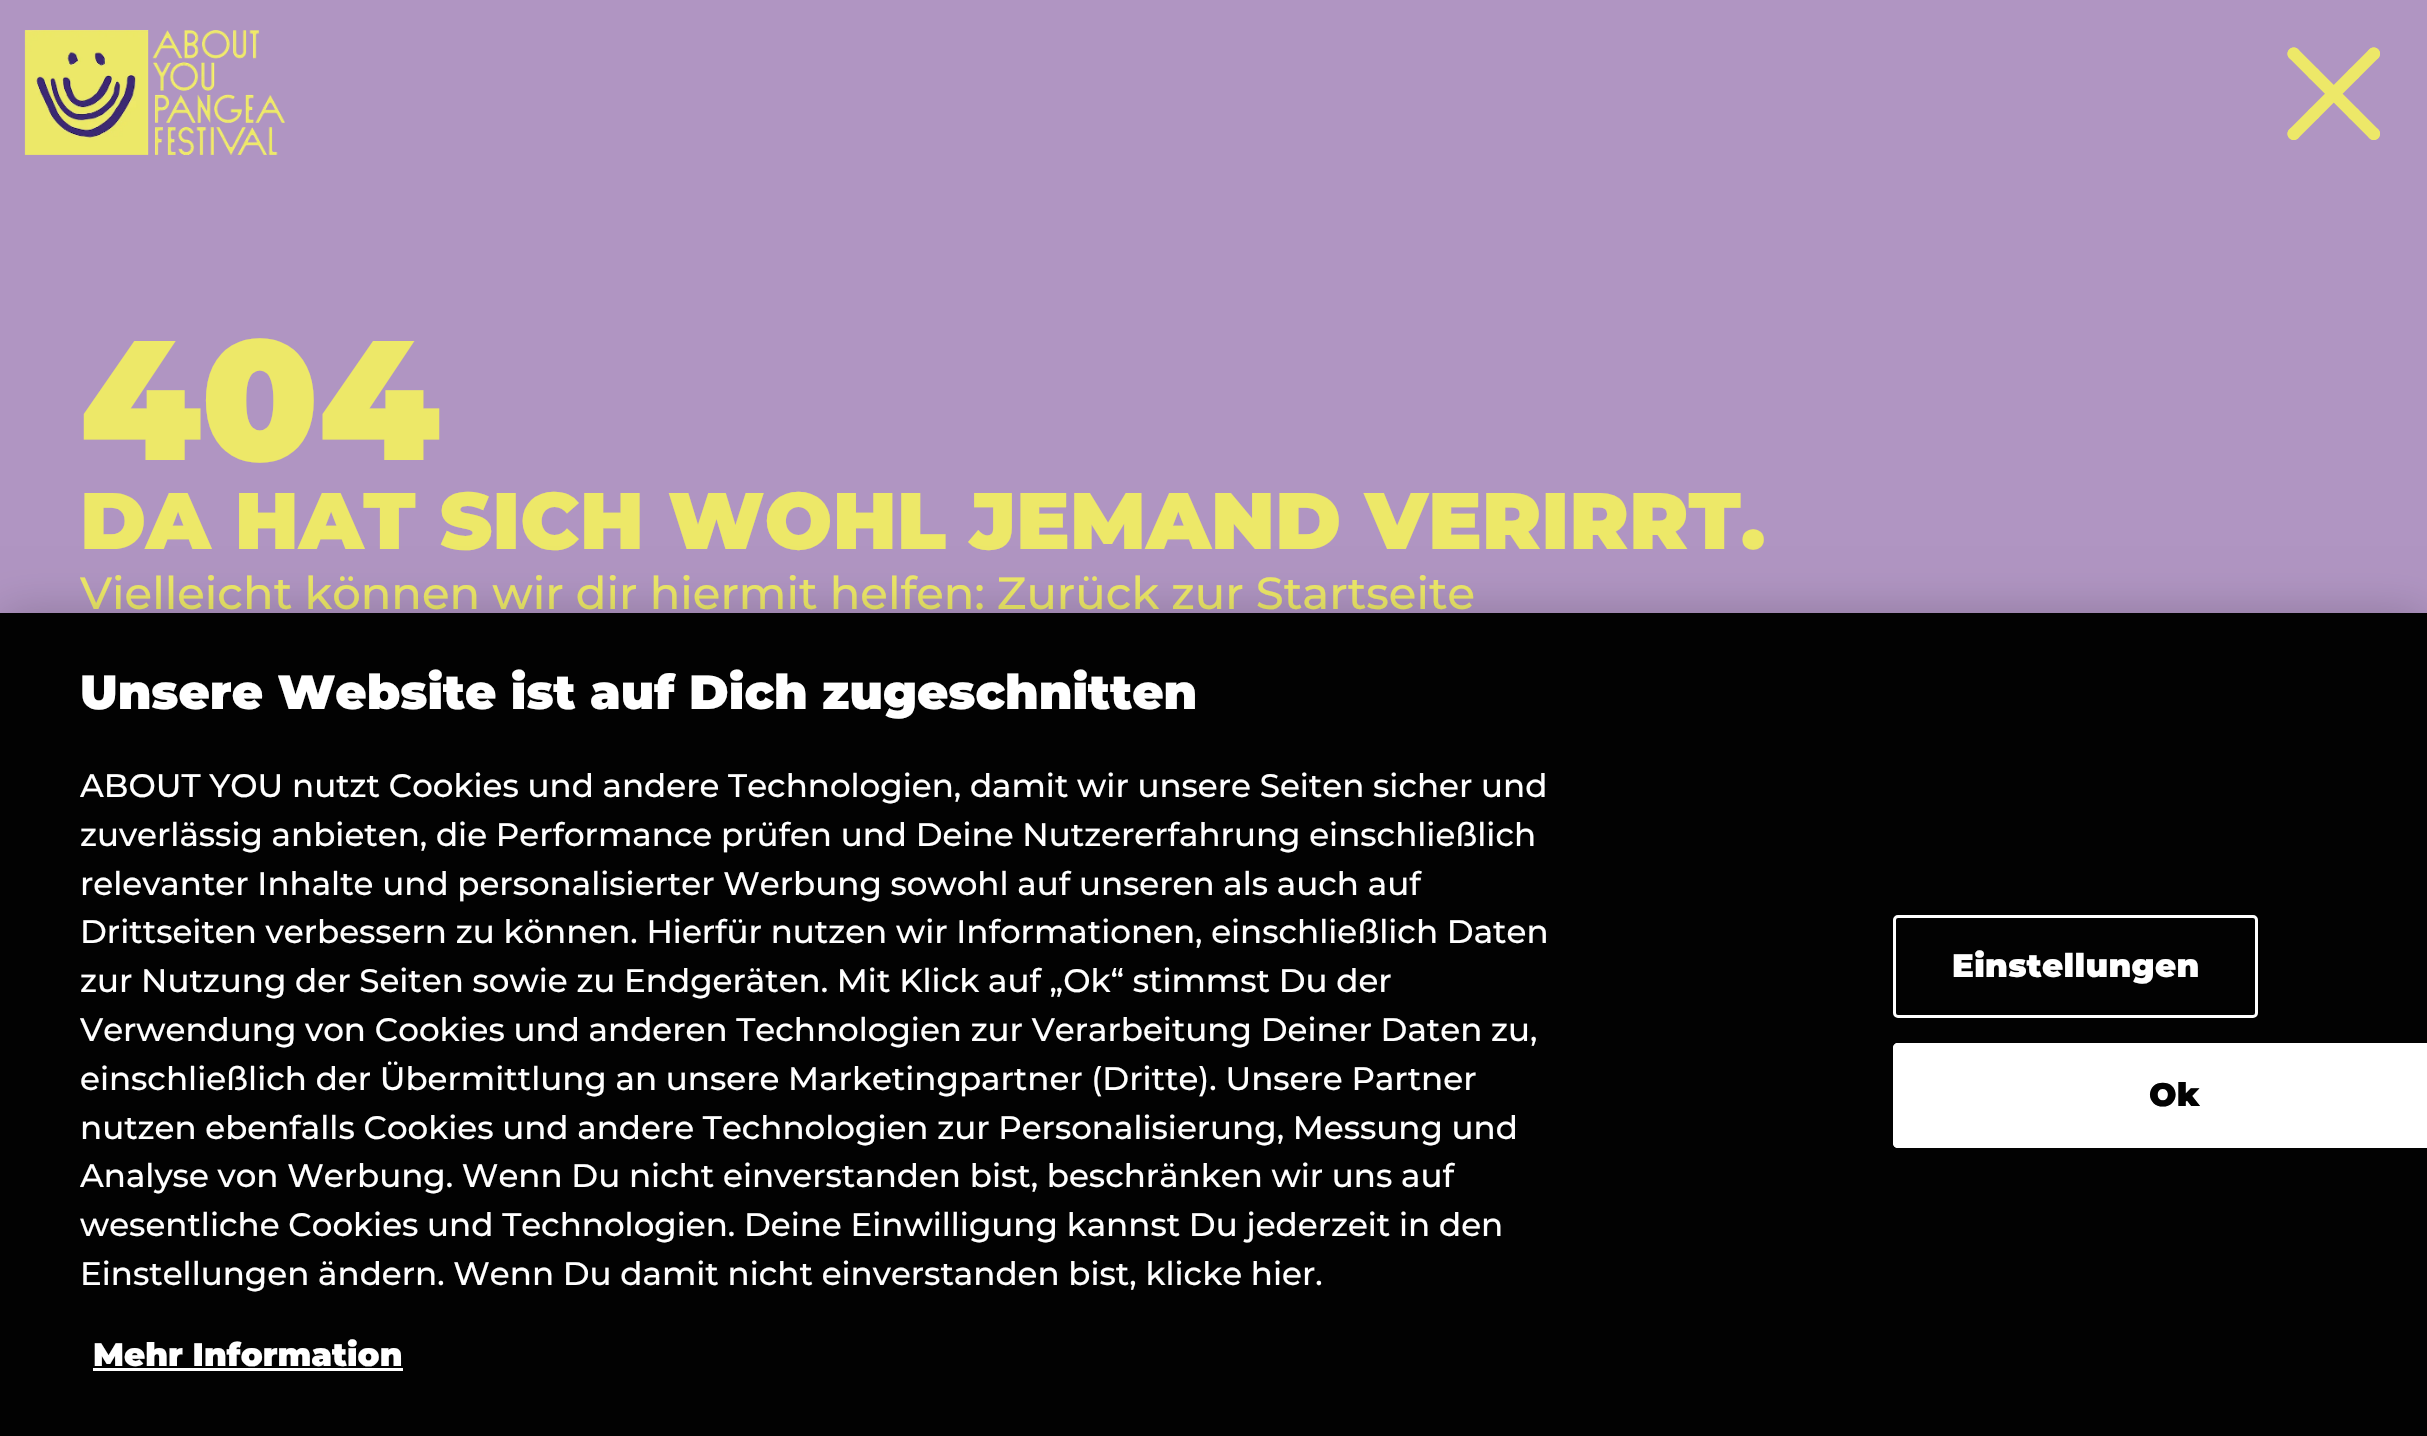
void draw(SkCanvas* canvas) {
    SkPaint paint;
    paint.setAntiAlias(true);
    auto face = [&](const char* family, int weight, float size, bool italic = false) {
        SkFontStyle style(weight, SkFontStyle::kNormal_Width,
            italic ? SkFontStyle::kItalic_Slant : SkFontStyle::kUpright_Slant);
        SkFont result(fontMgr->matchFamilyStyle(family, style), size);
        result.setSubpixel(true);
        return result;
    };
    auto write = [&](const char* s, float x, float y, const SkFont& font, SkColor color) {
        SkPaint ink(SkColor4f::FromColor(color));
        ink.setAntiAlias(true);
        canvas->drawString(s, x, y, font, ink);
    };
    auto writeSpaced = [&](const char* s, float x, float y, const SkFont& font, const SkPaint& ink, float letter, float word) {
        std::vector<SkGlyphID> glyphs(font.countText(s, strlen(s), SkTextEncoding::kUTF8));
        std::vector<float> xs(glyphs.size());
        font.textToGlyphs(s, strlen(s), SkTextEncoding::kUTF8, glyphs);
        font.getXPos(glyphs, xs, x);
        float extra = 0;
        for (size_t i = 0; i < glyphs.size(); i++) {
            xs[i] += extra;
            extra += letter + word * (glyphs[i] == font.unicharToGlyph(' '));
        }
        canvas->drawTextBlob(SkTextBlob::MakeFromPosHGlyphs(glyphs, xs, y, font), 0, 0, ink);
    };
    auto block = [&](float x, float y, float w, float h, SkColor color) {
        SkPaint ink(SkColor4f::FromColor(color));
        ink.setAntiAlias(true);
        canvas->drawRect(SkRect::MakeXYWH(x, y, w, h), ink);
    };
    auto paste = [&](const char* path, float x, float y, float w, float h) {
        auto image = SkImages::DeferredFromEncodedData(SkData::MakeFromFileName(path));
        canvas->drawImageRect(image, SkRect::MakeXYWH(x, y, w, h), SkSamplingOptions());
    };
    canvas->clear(SkColorSetRGB(176, 149, 194));
    paste("pic1.png", 24, 30, 261, 125);
    paste("pic2.png", 2287, 47, 93, 93);
    auto kFont1 = face("Montserrat", 900, 170);
    write("404", 80, 460, kFont1, SkColorSetRGB(237, 232, 104));
    auto kFont2 = face("Montserrat", 900, 80);
    write("DA HAT SICH WOHL JEMAND VERIRRT.", 80, 549, kFont2, SkColorSetRGB(237, 232, 104));
    auto kFont3 = face("Montserrat", 500, 45);
    write("Vielleicht können wir dir hiermit helfen: Zurück zur Startseite", 80, 609, kFont3, SkColorSetRGB(237, 232, 104));
    paint.setColor(SkColorSetARGB(51, 0, 0, 0));
    paint.setMaskFilter(SkMaskFilter::MakeBlur(kNormal_SkBlurStyle, 22.5f));
    canvas->drawRect(SkRect::MakeXYWH(0, 613, 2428, 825), paint);
    paint.setMaskFilter(nullptr);
    block(0, 613, 2427, 823, SkColorSetRGB(2, 2, 2));
    auto kFont4 = face("Montserrat", 900, 48);
    write("Unsere Website ist auf Dich zugeschnitten", 80, 709, kFont4, SK_ColorWHITE);
    auto kFont5 = face("Montserrat", 500, 32.5f);
    write("ABOUT YOU nutzt Cookies und andere Technologien, damit wir unsere Seiten sicher und", 80, 797, kFont5, SK_ColorWHITE);
    write("zuverlässig anbieten, die Performance prüfen und Deine Nutzererfahrung einschließlich", 80, 846, kFont5, SK_ColorWHITE);
    write("relevanter Inhalte und personalisierter Werbung sowohl auf unseren als auch auf", 80, 895, kFont5, SK_ColorWHITE);
    write("Drittseiten verbessern zu können. Hierfür nutzen wir Informationen, einschließlich Daten", 80, 943, kFont5, SK_ColorWHITE);
    write("zur Nutzung der Seiten sowie zu Endgeräten. Mit Klick auf „Ok“ stimmst Du der", 80, 992, kFont5, SK_ColorWHITE);
    write("Verwendung von Cookies und anderen Technologien zur Verarbeitung Deiner Daten zu,", 80, 1041, kFont5, SK_ColorWHITE);
    write("einschließlich der Übermittlung an unsere Marketingpartner (Dritte). Unsere Partner", 80, 1090, kFont5, SK_ColorWHITE);
    write("nutzen ebenfalls Cookies und andere Technologien zur Personalisierung, Messung und", 80, 1139, kFont5, SK_ColorWHITE);
    write("Analyse von Werbung. Wenn Du nicht einverstanden bist, beschränken wir uns auf", 80, 1187, kFont5, SK_ColorWHITE);
    write("wesentliche Cookies und Technologien. Deine Einwilligung kannst Du jederzeit in den", 80, 1236, kFont5, SK_ColorWHITE);
    write("Einstellungen ändern. Wenn Du damit nicht einverstanden bist, klicke hier.", 80, 1285, kFont5, SK_ColorWHITE);
    auto kFont6 = face("Montserrat", 900, 32.5f);
    write("Mehr Information", 93, 1366, kFont6, SK_ColorWHITE);
    block(93, 1368, 310, 3, SK_ColorWHITE);
    paint.setStyle(SkPaint::kStroke_Style);
    paint.setStrokeWidth(3);
    paint.setColor(SK_ColorWHITE);
    canvas->drawRoundRect(SkRect::MakeXYWH(1894.5f, 916.5f, 362, 100), 3.5f, 3.5f, paint);
    paint.setStyle(SkPaint::kFill_Style);
    writeSpaced("Einstellungen", 1952, 977, kFont6, paint, 0.3f, 0);
    canvas->drawPath(SkPathBuilder().moveTo(1898, 1043).lineTo(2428, 1043).lineTo(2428, 1148).lineTo(1898, 1148).cubicTo(1895, 1148, 1893, 1146, 1893, 1143).lineTo(1893, 1048).cubicTo(1893, 1045, 1895, 1043, 1898, 1043).close().detach(), paint);
    paint.setStyle(SkPaint::kStroke_Style);
    canvas->drawRoundRect(SkRect::MakeXYWH(1894.5f, 1044.5f, 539, 102), 3.5f, 3.5f, paint);
    paint.setStyle(SkPaint::kFill_Style);
    paint.setColor(SkColorSetRGB(2, 2, 2));
    writeSpaced("Ok", 2149, 1106, kFont6, paint, 0.3f, 0);
}
